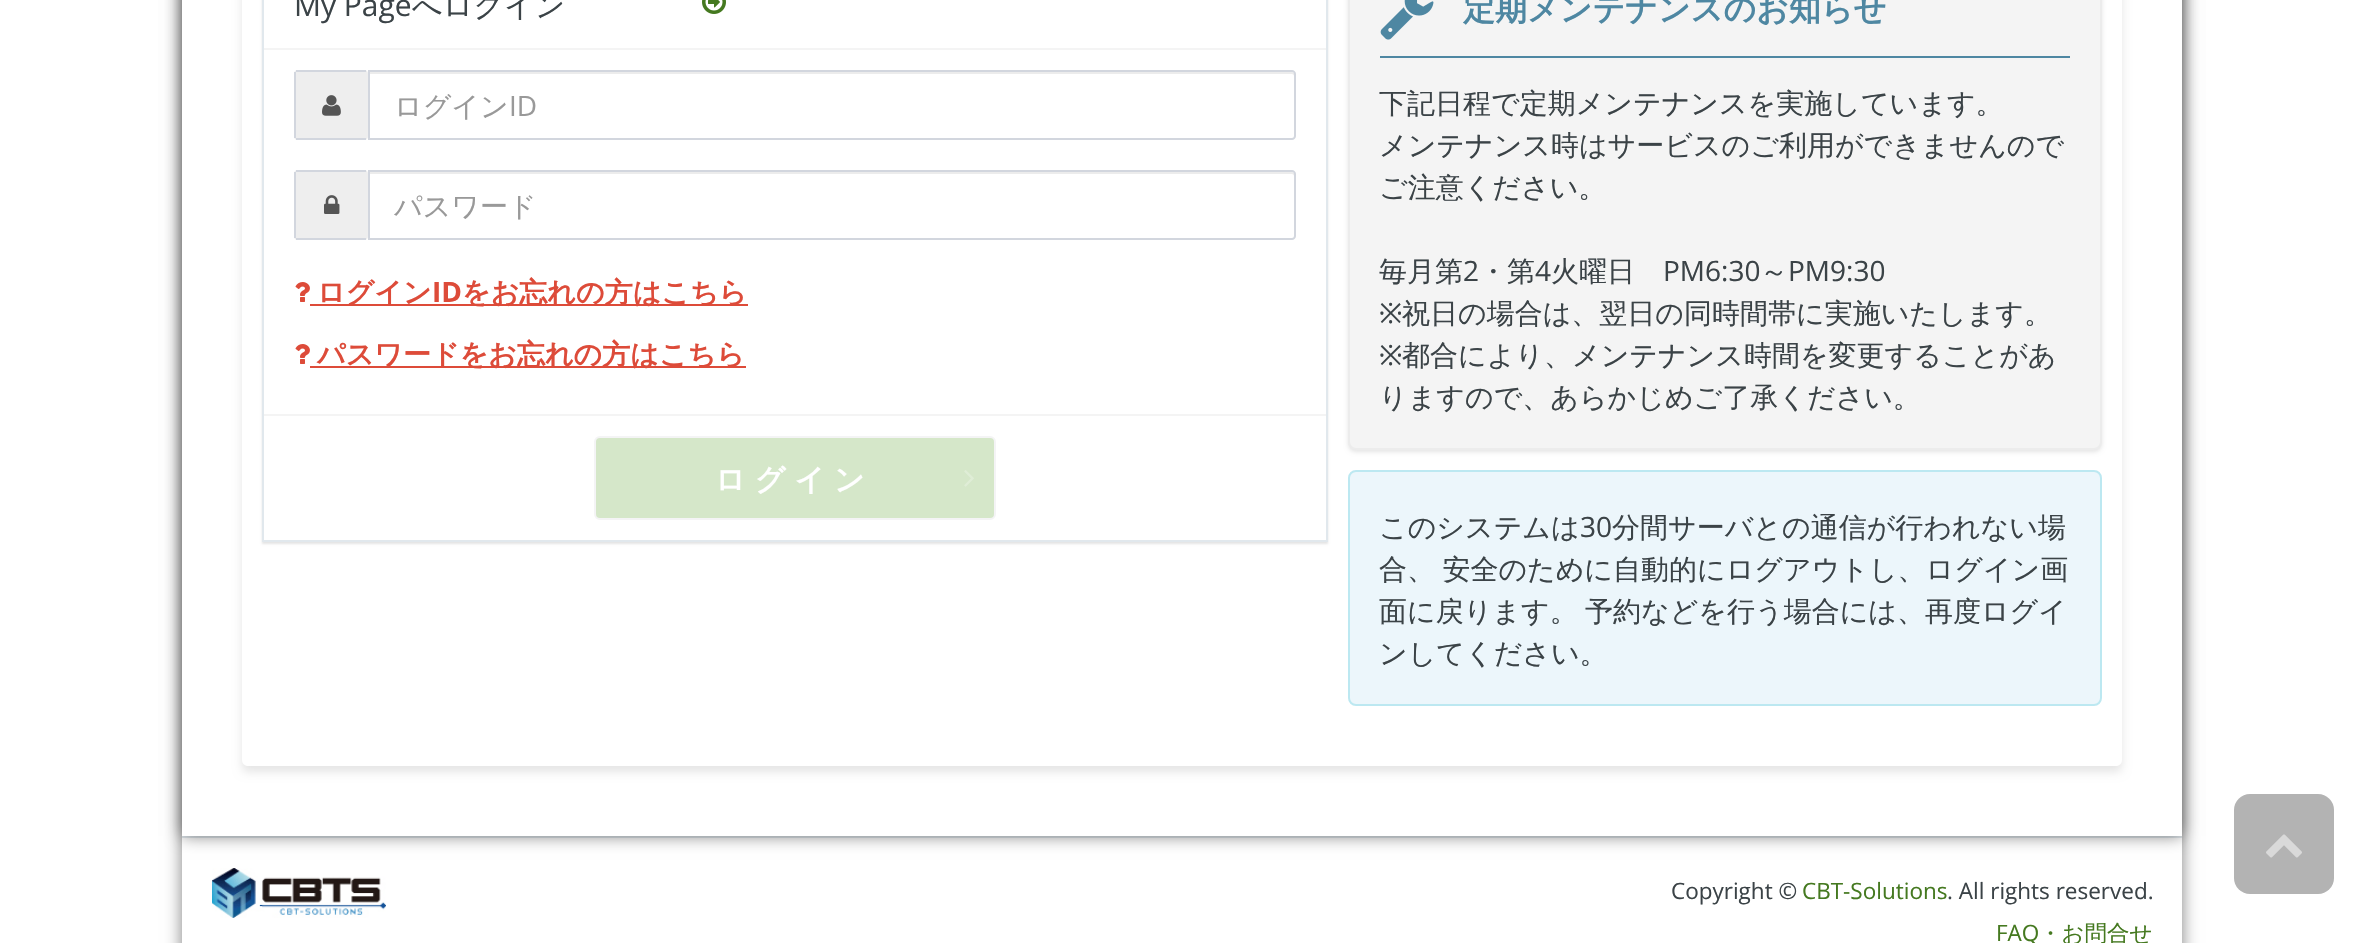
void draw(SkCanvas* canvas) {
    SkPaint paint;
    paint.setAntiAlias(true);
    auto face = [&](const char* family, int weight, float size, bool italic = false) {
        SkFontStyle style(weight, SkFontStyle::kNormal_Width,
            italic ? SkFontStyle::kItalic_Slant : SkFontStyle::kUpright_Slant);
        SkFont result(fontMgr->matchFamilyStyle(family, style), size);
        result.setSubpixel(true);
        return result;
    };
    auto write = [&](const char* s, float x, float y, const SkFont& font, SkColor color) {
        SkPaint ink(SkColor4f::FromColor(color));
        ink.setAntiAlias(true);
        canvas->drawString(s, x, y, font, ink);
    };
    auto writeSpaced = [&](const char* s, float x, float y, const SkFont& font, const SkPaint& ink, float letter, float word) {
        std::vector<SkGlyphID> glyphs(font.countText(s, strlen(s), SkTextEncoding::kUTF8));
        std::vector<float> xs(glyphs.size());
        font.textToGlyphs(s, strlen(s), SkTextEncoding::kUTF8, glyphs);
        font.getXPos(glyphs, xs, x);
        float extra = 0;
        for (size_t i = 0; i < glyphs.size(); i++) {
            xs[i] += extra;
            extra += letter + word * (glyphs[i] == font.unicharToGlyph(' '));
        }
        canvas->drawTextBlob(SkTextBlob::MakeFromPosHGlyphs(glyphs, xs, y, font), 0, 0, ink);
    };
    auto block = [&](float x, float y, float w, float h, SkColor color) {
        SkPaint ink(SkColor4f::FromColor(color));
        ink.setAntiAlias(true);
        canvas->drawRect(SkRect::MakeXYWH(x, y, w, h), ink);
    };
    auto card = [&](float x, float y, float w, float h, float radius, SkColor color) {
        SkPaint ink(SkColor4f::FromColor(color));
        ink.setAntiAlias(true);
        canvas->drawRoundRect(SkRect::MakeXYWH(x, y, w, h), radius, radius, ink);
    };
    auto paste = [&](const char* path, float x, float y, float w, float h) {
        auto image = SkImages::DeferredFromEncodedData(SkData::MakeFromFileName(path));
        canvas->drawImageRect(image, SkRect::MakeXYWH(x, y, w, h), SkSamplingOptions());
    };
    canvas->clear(SK_ColorWHITE);
    canvas->save();
    canvas->clipPath(SkPathBuilder(SkPathFillType::kEvenOdd).moveTo(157, 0).lineTo(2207, 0).lineTo(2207, 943).lineTo(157, 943).close().moveTo(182, -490).lineTo(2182, -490).lineTo(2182, 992).lineTo(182, 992).close().detach(), true);
    paint.setColor(SkColorSetARGB(128, 0, 0, 0));
    paint.setMaskFilter(SkMaskFilter::MakeBlur(kNormal_SkBlurStyle, 8));
    canvas->drawRect(SkRect::MakeXYWH(182, -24, 2000, 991), paint);
    paint.setMaskFilter(nullptr);
    canvas->restore();
    block(182, 836, 2000, 2, SkColorSetRGB(225, 232, 237));
    canvas->save();
    canvas->clipPath(SkPathBuilder(SkPathFillType::kEvenOdd).moveTo(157, 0).lineTo(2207, 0).lineTo(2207, 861).lineTo(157, 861).close().moveTo(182, -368).lineTo(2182, -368).lineTo(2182, 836).lineTo(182, 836).close().detach(), true);
    paint.setMaskFilter(SkMaskFilter::MakeBlur(kNormal_SkBlurStyle, 8));
    canvas->drawRect(SkRect::MakeXYWH(182, -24, 2000, 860), paint);
    paint.setMaskFilter(nullptr);
    canvas->restore();
    paint.setColor(SkColorSetARGB(26, 0, 0, 0));
    paint.setMaskFilter(SkMaskFilter::MakeBlur(kNormal_SkBlurStyle, 5));
    canvas->drawRoundRect(SkRect::MakeXYWH(242, -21, 1880, 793), 6, 6, paint);
    paint.setMaskFilter(nullptr);
    paint.setColor(SK_ColorWHITE);
    canvas->drawPath(SkPathBuilder().moveTo(242, -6).lineTo(2122, -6).lineTo(2122, 760).cubicTo(2122, 763.5f, 2119.5f, 766, 2116, 766).lineTo(248, 766).cubicTo(244.5f, 766, 242, 763.5f, 242, 760).close().detach(), paint);
    canvas->save();
    canvas->clipPath(SkPathBuilder(SkPathFillType::kEvenOdd).moveTo(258, 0).lineTo(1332, 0).lineTo(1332, 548).lineTo(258, 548).close().moveTo(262, -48).lineTo(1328, -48).lineTo(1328, 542).lineTo(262, 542).close().detach(), true);
    paint.setColor(SkColorSetARGB(26, 0, 0, 0));
    paint.setMaskFilter(SkMaskFilter::MakeBlur(kNormal_SkBlurStyle, 1));
    canvas->drawRect(SkRect::MakeXYWH(262, -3, 1066, 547), paint);
    paint.setMaskFilter(nullptr);
    canvas->restore();
    paint.setColor(SkColorSetRGB(225, 232, 237));
    canvas->drawPath(SkPathBuilder().moveTo(1328, -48).lineTo(1328, 542).lineTo(1326, 540).lineTo(1326, -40).close().detach(), paint);
    block(262, 540, 1066, 2, SkColorSetRGB(225, 232, 237));
    canvas->drawPath(SkPathBuilder().moveTo(262, 542).lineTo(262, -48).lineTo(264, -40).lineTo(264, 540).close().detach(), paint);
    block(264, 48, 1062, 2, SkColorSetRGB(244, 244, 244));
    auto kFont1 = face("Open Sans", 400, 30);
    write("My Page", 294, 16, kFont1, SkColorSetRGB(59, 67, 71));
    auto kFont2 = face("WenQuanYi Zen Hei", 500, 30);
    write("へログイン", 412, 16, kFont2, SkColorSetRGB(59, 67, 71));
    paste("pic1.png", 702, 0, 24, 14);
    card(294, 70, 74, 70, 4, SkColorSetRGB(238, 238, 238));
    block(296, 70, 70, 2, SkColorSetRGB(210, 214, 222));
    block(296, 138, 70, 2, SkColorSetRGB(210, 214, 222));
    block(294, 72, 2, 66, SkColorSetRGB(210, 214, 222));
    paste("pic2.png", 322, 95, 19, 21);
    paint.setColor(SkColorSetRGB(236, 236, 236));
    canvas->drawPath(SkPathBuilder().moveTo(370, 74).lineTo(1292, 74).cubicTo(1293, 74, 1294, 75, 1294, 76).lineTo(1294, 73).lineTo(1292, 72).lineTo(370, 72).close().detach(), paint);
    paint.setStyle(SkPaint::kStroke_Style);
    paint.setStrokeWidth(2);
    paint.setColor(SkColorSetRGB(210, 214, 222));
    canvas->drawPath(SkPathBuilder().moveTo(369, 71).lineTo(1292, 71).cubicTo(1293.5f, 71, 1295, 72.5f, 1295, 74).lineTo(1295, 136).cubicTo(1295, 137.5f, 1293.5f, 139, 1292, 139).lineTo(369, 139).close().detach(), paint);
    auto kFont3 = face("WenQuanYi Zen Hei", 500, 28);
    write("ログイン", 394, 116, kFont3, SkColorSetRGB(153, 153, 153));
    auto kFont4 = face("Open Sans", 400, 28);
    write("ID", 509, 116, kFont4, SkColorSetRGB(153, 153, 153));
    card(294, 170, 74, 70, 4, SkColorSetRGB(238, 238, 238));
    block(296, 170, 70, 2, SkColorSetRGB(210, 214, 222));
    block(296, 238, 70, 2, SkColorSetRGB(210, 214, 222));
    block(294, 172, 2, 66, SkColorSetRGB(210, 214, 222));
    paste("pic3.png", 324, 195, 16, 19);
    paint.setStyle(SkPaint::kFill_Style);
    paint.setColor(SkColorSetRGB(236, 236, 236));
    canvas->drawPath(SkPathBuilder().moveTo(370, 174).lineTo(1292, 174).cubicTo(1293, 174, 1294, 175, 1294, 176).lineTo(1294, 173).lineTo(1292, 172).lineTo(370, 172).close().detach(), paint);
    paint.setStyle(SkPaint::kStroke_Style);
    paint.setColor(SkColorSetRGB(210, 214, 222));
    canvas->drawPath(SkPathBuilder().moveTo(369, 171).lineTo(1292, 171).cubicTo(1293.5f, 171, 1295, 172.5f, 1295, 174).lineTo(1295, 236).cubicTo(1295, 237.5f, 1293.5f, 239, 1292, 239).lineTo(369, 239).close().detach(), paint);
    write("パスワード", 394, 216, kFont3, SkColorSetRGB(153, 153, 153));
    paste("pic4.png", 295, 282, 15, 20);
    block(310, 304, 438, 2, SkColorSetRGB(221, 75, 57));
    auto kFont5 = face("WenQuanYi Zen Hei", 700, 28);
    write("ログイン", 317, 302, kFont5, SkColorSetRGB(221, 75, 57));
    auto kFont6 = face("Open Sans", 700, 28);
    write("ID", 432, 302, kFont6, SkColorSetRGB(221, 75, 57));
    write("をお忘れの方はこちら", 462, 302, kFont5, SkColorSetRGB(221, 75, 57));
    paste("pic4.png", 295, 344, 15, 20);
    block(310, 366, 436, 2, SkColorSetRGB(221, 75, 57));
    write("パスワードをお忘れの方はこちら", 317, 364, kFont5, SkColorSetRGB(221, 75, 57));
    block(264, 414, 1062, 2, SkColorSetRGB(244, 244, 244));
    paint.setStyle(SkPaint::kFill_Style);
    paint.setColor(SkColorSetRGB(213, 231, 201));
    canvas->drawRoundRect(SkRect::MakeXYWH(595, 437, 400, 82), 5, 5, paint);
    paint.setStyle(SkPaint::kStroke_Style);
    paint.setColor(SkColorSetRGB(244, 244, 245));
    canvas->drawRoundRect(SkRect::MakeXYWH(595, 437, 400, 82), 5, 5, paint);
    auto kFont7 = face("WenQuanYi Zen Hei", 700, 30);
    paint.setStyle(SkPaint::kFill_Style);
    paint.setColor(SK_ColorWHITE);
    writeSpaced("ログイン", 715, 490, kFont7, paint, 9, 0);
    paste("pic5.png", 964, 470, 10, 17);
    paint.setColor(SkColorSetARGB(26, 0, 0, 0));
    paint.setMaskFilter(SkMaskFilter::MakeBlur(kNormal_SkBlurStyle, 2));
    canvas->drawRoundRect(SkRect::MakeXYWH(1348, -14, 754, 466), 8, 8, paint);
    paint.setMaskFilter(nullptr);
    paint.setColor(SkColorSetRGB(244, 244, 244));
    canvas->drawRoundRect(SkRect::MakeXYWH(1349, -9, 752, 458), 7, 7, paint);
    paint.setStyle(SkPaint::kStroke_Style);
    paint.setColor(SkColorSetRGB(236, 236, 236));
    canvas->drawRoundRect(SkRect::MakeXYWH(1349, -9, 752, 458), 7, 7, paint);
    block(1380, 56, 690, 2, SkColorSetRGB(78, 135, 162));
    paste("pic6.png", 1380, 0, 54, 40);
    auto kFont8 = face("WenQuanYi Zen Hei", 700, 32);
    write("定期メンテナンスのお知らせ", 1463, 20, kFont8, SkColorSetRGB(78, 135, 162));
    write("下記日程で定期メンテナンスを実施しています。", 1379, 113, kFont3, SkColorSetRGB(59, 67, 71));
    write("メンテナンス時はサービスのご利用ができませんので", 1379, 155, kFont3, SkColorSetRGB(59, 67, 71));
    write("ご注意ください。", 1379, 197, kFont3, SkColorSetRGB(59, 67, 71));
    write("毎月第", 1379, 281, kFont3, SkColorSetRGB(59, 67, 71));
    write("2", 1463, 281, kFont4, SkColorSetRGB(59, 67, 71));
    write("・第", 1479, 281, kFont3, SkColorSetRGB(59, 67, 71));
    write("4", 1535, 281, kFont4, SkColorSetRGB(59, 67, 71));
    write("火曜日", 1551, 281, kFont3, SkColorSetRGB(59, 67, 71));
    write("PM6:30", 1663, 281, kFont4, SkColorSetRGB(59, 67, 71));
    write("～", 1760, 281, kFont3, SkColorSetRGB(59, 67, 71));
    write("PM9:30", 1788, 281, kFont4, SkColorSetRGB(59, 67, 71));
    auto kFont9 = face("Noto Sans", 400, 28);
    write("※", 1379, 323, kFont9, SkColorSetRGB(59, 67, 71));
    write("祝日の場合は、翌日の同時間帯に実施いたします。", 1402, 323, kFont3, SkColorSetRGB(59, 67, 71));
    write("※", 1379, 365, kFont9, SkColorSetRGB(59, 67, 71));
    write("都合により、メンテナンス時間を変更することがあ", 1402, 365, kFont3, SkColorSetRGB(59, 67, 71));
    write("りますので、あらかじめご了承ください。", 1379, 407, kFont3, SkColorSetRGB(59, 67, 71));
    paint.setStyle(SkPaint::kFill_Style);
    paint.setColor(SkColorSetRGB(236, 246, 251));
    canvas->drawRoundRect(SkRect::MakeXYWH(1349, 471, 752, 234), 7, 7, paint);
    paint.setStyle(SkPaint::kStroke_Style);
    paint.setColor(SkColorSetRGB(188, 232, 241));
    canvas->drawRoundRect(SkRect::MakeXYWH(1349, 471, 752, 234), 7, 7, paint);
    write("このシステムは", 1379, 537, kFont3, SkColorSetRGB(59, 67, 71));
    write("30", 1580, 537, kFont4, SkColorSetRGB(59, 67, 71));
    write("分間サーバとの通信が行われない場", 1612, 537, kFont3, SkColorSetRGB(59, 67, 71));
    paint.setStyle(SkPaint::kFill_Style);
    paint.setColor(SkColorSetRGB(59, 67, 71));
    writeSpaced("合、 安全のために自動的にログアウトし、ログイン画", 1379, 579, kFont3, paint, 0, -1);
    writeSpaced("面に戻ります。 予約などを行う場合には、再度ログイ", 1379, 621, kFont3, paint, 0, -1);
    write("ンしてください。", 1379, 663, kFont3, SkColorSetRGB(59, 67, 71));
    card(2234, 794, 100, 100, 16, SkColorSetRGB(179, 179, 179));
    paste("pic7.png", 2266, 834, 36, 24);
    paste("pic8.png", 212, 868, 174, 50);
    auto kFont10 = face("Open Sans", 400, 22.5f);
    write("Copyright ©", 1671, 899, kFont10, SkColorSetRGB(59, 67, 71));
    write("CBT-Solutions", 1802, 899, kFont10, SkColorSetRGB(69, 121, 32));
    write(". All rights reserved.", 1947, 899, kFont10, SkColorSetRGB(59, 67, 71));
    write("FAQ", 1996, 941, kFont10, SkColorSetRGB(69, 121, 32));
    auto kFont11 = face("WenQuanYi Zen Hei", 500, 22.5f);
    write("・お問合せ", 2039, 941, kFont11, SkColorSetRGB(69, 121, 32));
}
